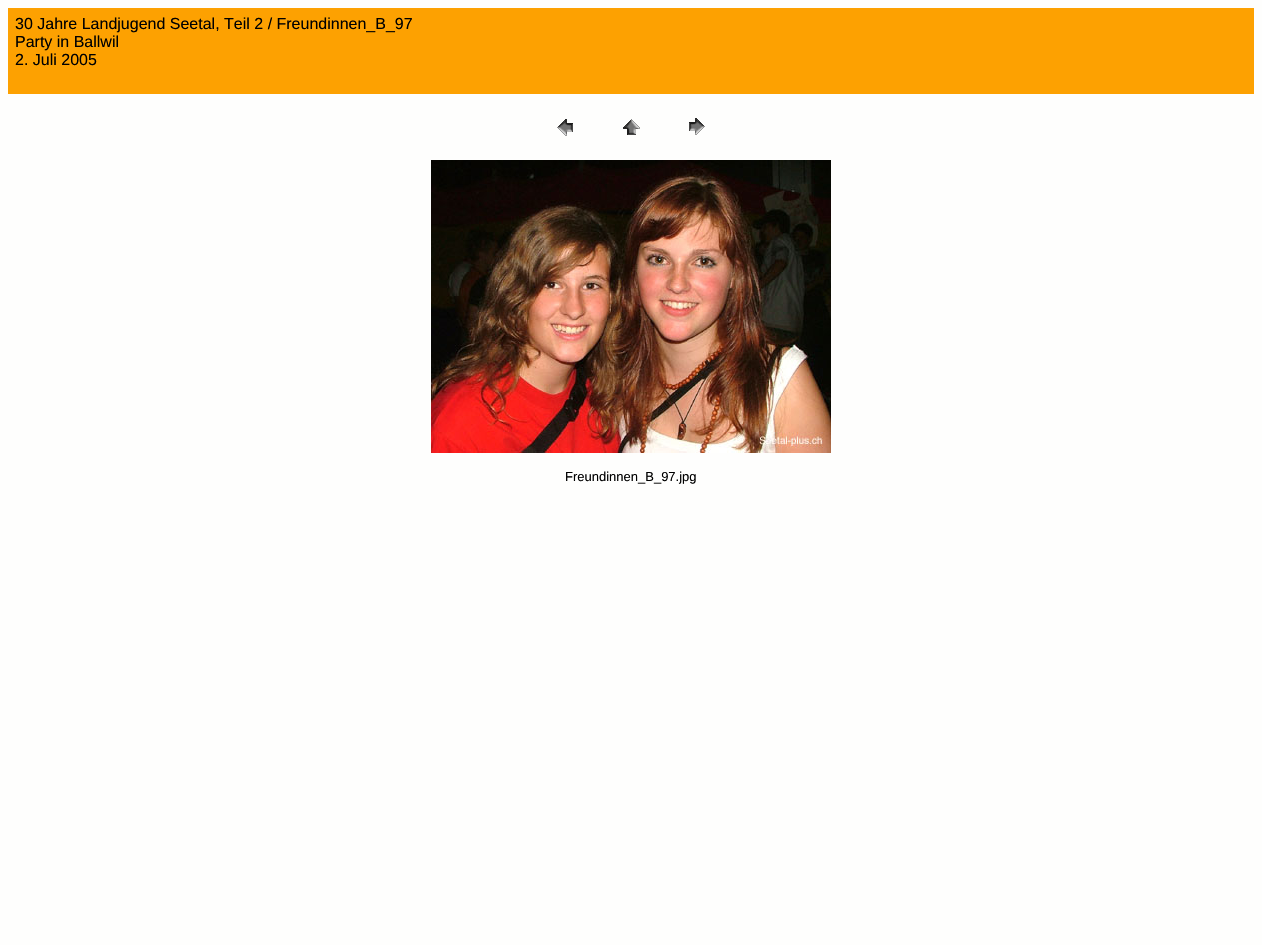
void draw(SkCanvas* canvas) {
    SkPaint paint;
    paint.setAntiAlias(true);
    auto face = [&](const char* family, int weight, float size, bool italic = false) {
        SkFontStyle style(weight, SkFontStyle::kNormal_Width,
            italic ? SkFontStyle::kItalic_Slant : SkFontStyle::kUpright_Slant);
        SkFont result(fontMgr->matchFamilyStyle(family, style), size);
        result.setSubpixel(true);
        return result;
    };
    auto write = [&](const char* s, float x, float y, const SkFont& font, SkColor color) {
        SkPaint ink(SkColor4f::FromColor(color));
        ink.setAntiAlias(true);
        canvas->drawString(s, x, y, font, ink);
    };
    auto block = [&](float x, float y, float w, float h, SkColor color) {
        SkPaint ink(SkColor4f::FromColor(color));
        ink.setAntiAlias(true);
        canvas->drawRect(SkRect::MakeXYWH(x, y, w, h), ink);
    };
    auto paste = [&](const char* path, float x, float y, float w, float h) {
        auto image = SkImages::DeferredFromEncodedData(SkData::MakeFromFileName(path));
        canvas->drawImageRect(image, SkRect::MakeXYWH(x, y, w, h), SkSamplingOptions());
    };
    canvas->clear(SkColorSetRGB(254, 254, 253));
    block(8, 8, 1246, 86, SkColorSetRGB(253, 161, 1));
    auto kFont1 = face("Liberation Sans", 400, 16);
    write("30 Jahre Landjugend Seetal, Teil 2 / Freundinnen_B_97", 15, 29, kFont1, SK_ColorBLACK);
    write("Party in Ballwil", 15, 47, kFont1, SK_ColorBLACK);
    write("2. Juli 2005", 15, 65, kFont1, SK_ColorBLACK);
    paste("pic1.png", 557, 119, 16, 17);
    paste("pic2.png", 623, 119, 17, 16);
    paste("pic3.png", 689, 118, 16, 17);
    paste("pic4.png", 431, 160, 400, 293);
    auto kFont2 = face("Liberation Sans", 400, 13);
    write("Freundinnen_B_97.jpg", 565, 481, kFont2, SK_ColorBLACK);
}
